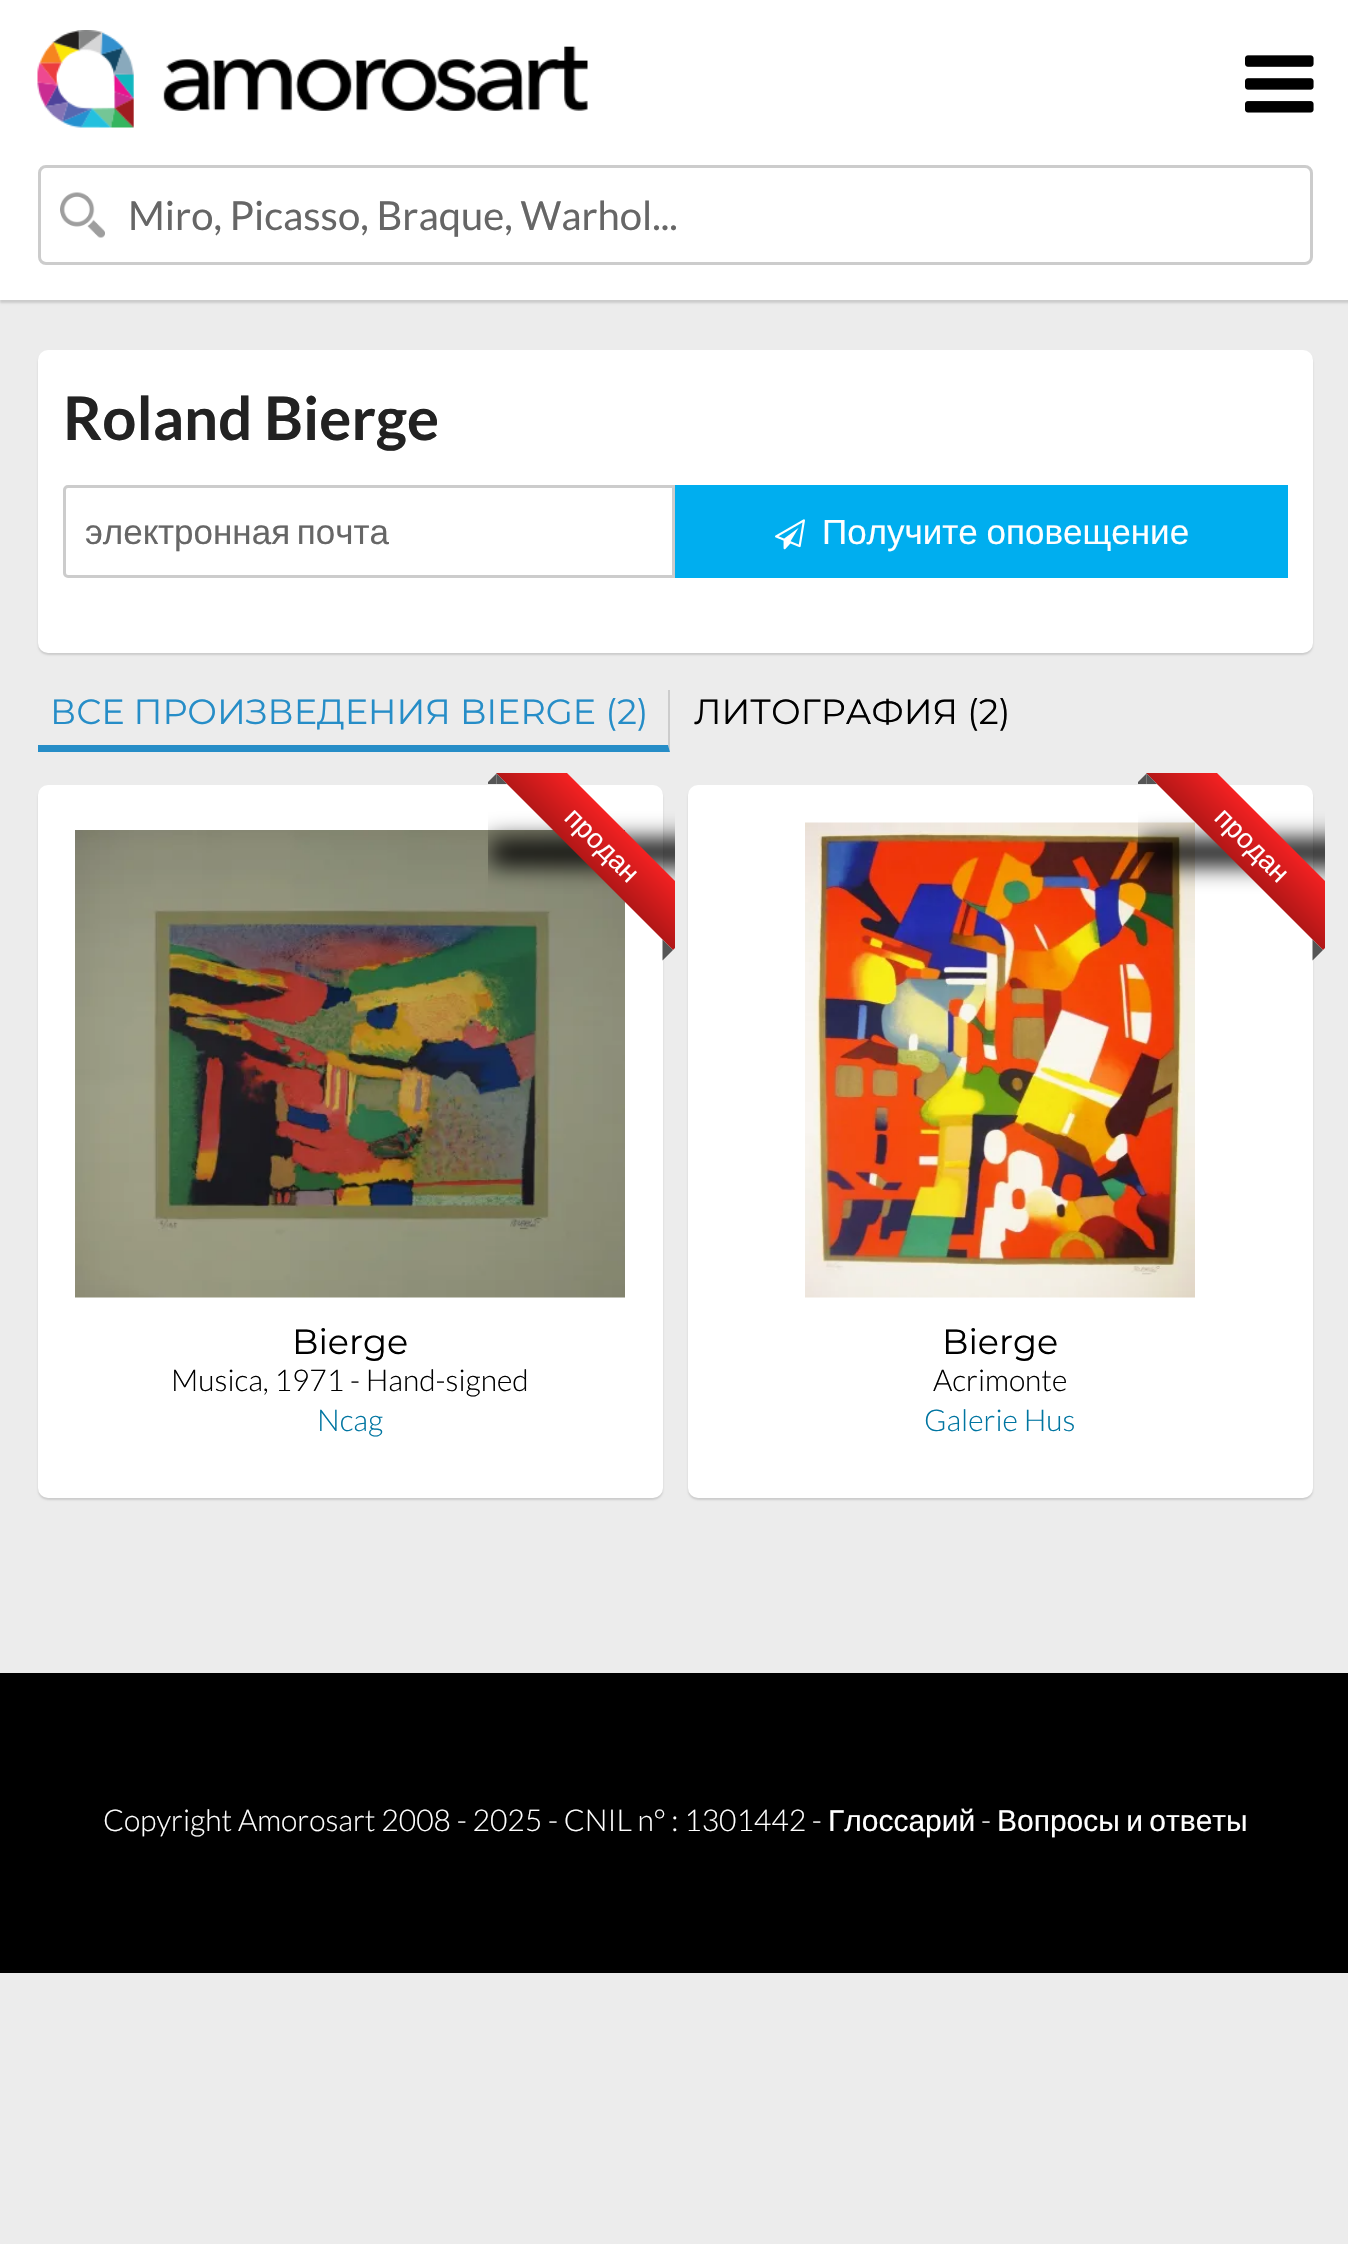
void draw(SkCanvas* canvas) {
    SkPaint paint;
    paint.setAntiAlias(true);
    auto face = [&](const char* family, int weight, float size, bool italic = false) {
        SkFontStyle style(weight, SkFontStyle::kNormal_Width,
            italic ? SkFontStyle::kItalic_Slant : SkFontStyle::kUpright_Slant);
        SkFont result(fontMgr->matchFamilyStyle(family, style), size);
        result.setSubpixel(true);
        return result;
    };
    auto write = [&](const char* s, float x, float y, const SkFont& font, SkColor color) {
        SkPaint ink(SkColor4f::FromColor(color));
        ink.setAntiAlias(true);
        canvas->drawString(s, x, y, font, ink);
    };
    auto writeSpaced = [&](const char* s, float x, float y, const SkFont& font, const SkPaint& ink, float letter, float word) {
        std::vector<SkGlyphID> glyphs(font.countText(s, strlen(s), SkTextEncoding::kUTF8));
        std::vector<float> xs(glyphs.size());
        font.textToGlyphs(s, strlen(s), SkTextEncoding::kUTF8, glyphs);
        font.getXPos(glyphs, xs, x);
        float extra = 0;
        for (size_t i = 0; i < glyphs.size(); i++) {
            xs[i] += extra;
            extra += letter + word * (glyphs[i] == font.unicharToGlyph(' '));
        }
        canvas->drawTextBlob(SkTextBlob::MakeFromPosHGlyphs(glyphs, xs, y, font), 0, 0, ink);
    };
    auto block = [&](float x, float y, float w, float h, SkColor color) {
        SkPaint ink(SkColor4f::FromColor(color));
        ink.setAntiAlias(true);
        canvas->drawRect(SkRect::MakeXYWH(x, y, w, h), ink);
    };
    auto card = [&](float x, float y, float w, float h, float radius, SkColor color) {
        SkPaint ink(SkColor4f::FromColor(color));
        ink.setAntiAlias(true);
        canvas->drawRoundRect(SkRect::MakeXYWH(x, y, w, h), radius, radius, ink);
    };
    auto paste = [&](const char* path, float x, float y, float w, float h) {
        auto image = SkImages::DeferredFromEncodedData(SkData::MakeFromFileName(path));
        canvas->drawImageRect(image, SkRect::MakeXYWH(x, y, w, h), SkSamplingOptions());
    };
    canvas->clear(SkColorSetRGB(236, 236, 236));
    paint.setColor(SkColorSetRGB(204, 204, 204));
    paint.setMaskFilter(SkMaskFilter::MakeBlur(kNormal_SkBlurStyle, 1));
    canvas->drawRect(SkRect::MakeXYWH(0, 3, 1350, 300), paint);
    paint.setMaskFilter(nullptr);
    block(0, 0, 1348, 300, SK_ColorWHITE);
    paste("pic1.png", 37, 30, 551, 98);
    paste("pic2.png", 1245, 55, 69, 58);
    paste("pic3.png", 60, 192, 45, 46);
    paint.setStyle(SkPaint::kStroke_Style);
    paint.setStrokeWidth(3);
    canvas->drawRoundRect(SkRect::MakeXYWH(39.5f, 166.5f, 1272, 97), 6.5f, 6.5f, paint);
    auto kFont1 = face("Lato", 400, 40);
    write("Miro, Picasso, Braque, Warhol...", 128, 230, kFont1, SkColorSetRGB(102, 102, 102));
    paint.setStyle(SkPaint::kFill_Style);
    paint.setMaskFilter(SkMaskFilter::MakeBlur(kNormal_SkBlurStyle, 1));
    canvas->drawRoundRect(SkRect::MakeXYWH(38, 353, 1275, 302), 10, 10, paint);
    paint.setMaskFilter(nullptr);
    card(38, 350, 1275, 303, 10, SK_ColorWHITE);
    auto kFont2 = face("Lato", 700, 60);
    write("Roland Bierge", 63, 440, kFont2, SkColorSetRGB(34, 34, 34));
    paint.setStyle(SkPaint::kStroke_Style);
    canvas->drawPath(SkPathBuilder().moveTo(68, 486.5f).lineTo(673.5f, 486.5f).lineTo(673.5f, 576.5f).lineTo(68, 576.5f).cubicTo(66, 576.5f, 64.5f, 575, 64.5f, 573).lineTo(64.5f, 490).cubicTo(64.5f, 488, 66, 486.5f, 68, 486.5f).close().detach(), paint);
    auto kFont3 = face("Liberation Sans", 400, 35);
    paint.setStyle(SkPaint::kFill_Style);
    paint.setColor(SkColorSetRGB(102, 102, 102));
    writeSpaced("электронная почта", 85, 544, kFont3, paint, 0, -3);
    block(675, 485, 613, 93, SkColorSetRGB(0, 174, 239));
    paste("pic4.png", 775, 519, 30, 31);
    paint.setColor(SK_ColorWHITE);
    writeSpaced("Получите оповещение", 822, 544, kFont3, paint, 0, -1);
    auto kFont4 = face("Montserrat", 400, 35);
    write("ВСЕ ПРОИЗВЕДЕНИЯ BIERGE (2)", 50, 724, kFont4, SkColorSetRGB(38, 141, 199));
    paint.setColor(SkColorSetRGB(204, 204, 204));
    canvas->drawPath(SkPathBuilder().moveTo(670, 690).lineTo(670, 752).lineTo(668, 745).lineTo(668, 690).close().detach(), paint);
    paint.setColor(SkColorSetRGB(38, 141, 199));
    canvas->drawPath(SkPathBuilder().moveTo(670, 752).lineTo(38, 752).lineTo(38, 745).lineTo(668, 745).close().detach(), paint);
    write("ЛИТОГРАФИЯ (2)", 694, 724, kFont4, SK_ColorBLACK);
    paint.setColor(SkColorSetRGB(204, 204, 204));
    paint.setMaskFilter(SkMaskFilter::MakeBlur(kNormal_SkBlurStyle, 1));
    canvas->drawRoundRect(SkRect::MakeXYWH(38, 788, 625, 712), 10, 10, paint);
    paint.setMaskFilter(nullptr);
    card(38, 785, 625, 713, 10, SK_ColorWHITE);
    paste("pic5.png", 75, 830, 550, 468);
    paint.setMaskFilter(SkMaskFilter::MakeBlur(kNormal_SkBlurStyle, 1));
    canvas->drawRoundRect(SkRect::MakeXYWH(688, 788, 625, 712), 10, 10, paint);
    paint.setMaskFilter(nullptr);
    card(688, 785, 625, 713, 10, SK_ColorWHITE);
    canvas->save();
    canvas->clipRect(SkRect::MakeXYWH(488, 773, 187, 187));
    paint.setColor(SK_ColorBLACK);
    paint.setMaskFilter(SkMaskFilter::MakeBlur(kNormal_SkBlurStyle, 12.5f));
    canvas->drawRect(SkRect::MakeXYWH(490, 840, 225, 25), paint);
    paint.setMaskFilter(nullptr);
    canvas->restore();
    canvas->save();
    canvas->clipRect(SkRect::MakeXYWH(488, 773, 187, 187));
    {
        const SkColor colors[] = {SkColorSetRGB(244, 33, 34), SkColorSetRGB(178, 23, 23)};
        const float stops[] = {0, 1};
        const SkPoint ends[] = {{620, 826}, {585, 862}};
        paint.setShader(SkGradientShader::MakeLinear(ends, colors, stops, 2, SkTileMode::kClamp));
        paint.setAlpha(255);
    }
    canvas->drawPath(SkPathBuilder().moveTo(532, 738).lineTo(709, 915).lineTo(673, 950).lineTo(496, 773).close().detach(), paint);
    canvas->restore();
    paint.setShader(nullptr);
    paint.setColor(SkColorSetRGB(85, 85, 85));
    canvas->drawPath(SkPathBuilder().moveTo(496.5f, 773.5f).lineTo(507, 784).lineTo(496.5f, 784).close().detach(), paint);
    canvas->save();
    canvas->clipRect(SkRect::MakeXYWH(488, 773, 187, 187));
    canvas->drawPath(SkPathBuilder().moveTo(486, 784).lineTo(496.5f, 773.5f).lineTo(496.5f, 784).close().detach(), paint);
    canvas->restore();
    auto kFont5 = face("Liberation Sans", 400, 27.5f);
    canvas->save();
    canvas->rotate(45, 563, 819);
    write("продан", 563, 819, kFont5, SK_ColorWHITE);
    canvas->restore();
    canvas->drawPath(SkPathBuilder().moveTo(662.5f, 939.5f).lineTo(673, 950).lineTo(662.5f, 950).close().moveTo(673, 950).lineTo(662.5f, 960.5f).lineTo(662.5f, 950).close().detach(), paint);
    write("Bierge", 292, 1354, kFont4, SK_ColorBLACK);
    auto kFont6 = face("Lato", 300, 30);
    write("Musica, 1971 - Hand-signed", 171, 1391, kFont6, SK_ColorBLACK);
    write("Ncag", 317, 1431, kFont6, SkColorSetRGB(0, 117, 161));
    paste("pic6.png", 805, 822, 390, 476);
    canvas->save();
    canvas->clipRect(SkRect::MakeXYWH(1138, 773, 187, 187));
    paint.setColor(SK_ColorBLACK);
    paint.setMaskFilter(SkMaskFilter::MakeBlur(kNormal_SkBlurStyle, 12.5f));
    canvas->drawRect(SkRect::MakeXYWH(1140, 840, 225, 25), paint);
    paint.setMaskFilter(nullptr);
    canvas->restore();
    canvas->save();
    canvas->clipRect(SkRect::MakeXYWH(1138, 773, 187, 187));
    {
        const SkColor colors[] = {SkColorSetRGB(244, 33, 34), SkColorSetRGB(178, 23, 23)};
        const float stops[] = {0, 1};
        const SkPoint ends[] = {{1270, 826}, {1235, 862}};
        paint.setShader(SkGradientShader::MakeLinear(ends, colors, stops, 2, SkTileMode::kClamp));
        paint.setAlpha(255);
    }
    canvas->drawPath(SkPathBuilder().moveTo(1182, 738).lineTo(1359, 915).lineTo(1323, 950).lineTo(1146, 773).close().detach(), paint);
    canvas->restore();
    paint.setShader(nullptr);
    paint.setColor(SkColorSetRGB(85, 85, 85));
    canvas->drawPath(SkPathBuilder().moveTo(1146.5f, 773.5f).lineTo(1157, 784).lineTo(1146.5f, 784).close().detach(), paint);
    canvas->save();
    canvas->clipRect(SkRect::MakeXYWH(1138, 773, 187, 187));
    canvas->drawPath(SkPathBuilder().moveTo(1136, 784).lineTo(1146.5f, 773.5f).lineTo(1146.5f, 784).close().detach(), paint);
    canvas->restore();
    canvas->save();
    canvas->rotate(45, 1213, 819);
    write("продан", 1213, 819, kFont5, SK_ColorWHITE);
    canvas->restore();
    canvas->drawPath(SkPathBuilder().moveTo(1312.5f, 939.5f).lineTo(1323, 950).lineTo(1312.5f, 950).close().moveTo(1323, 950).lineTo(1312.5f, 960.5f).lineTo(1312.5f, 950).close().detach(), paint);
    write("Bierge", 942, 1354, kFont4, SK_ColorBLACK);
    write("Acrimonte", 933, 1391, kFont6, SK_ColorBLACK);
    write("Galerie Hus", 924, 1431, kFont6, SkColorSetRGB(0, 117, 161));
    block(0, 1673, 1348, 300, SK_ColorBLACK);
    write("Copyright Amorosart 2008 - 2025 - CNIL n° : 1301442 -", 103, 1831, kFont6, SK_ColorWHITE);
    auto kFont7 = face("Liberation Sans", 400, 30);
    write("Глоссарий", 828, 1831, kFont7, SK_ColorWHITE);
    write("-", 981, 1831, kFont6, SK_ColorWHITE);
    paint.setColor(SK_ColorWHITE);
    writeSpaced("Вопросы и ответы", 997, 1831, kFont7, paint, 0, -2);
}
